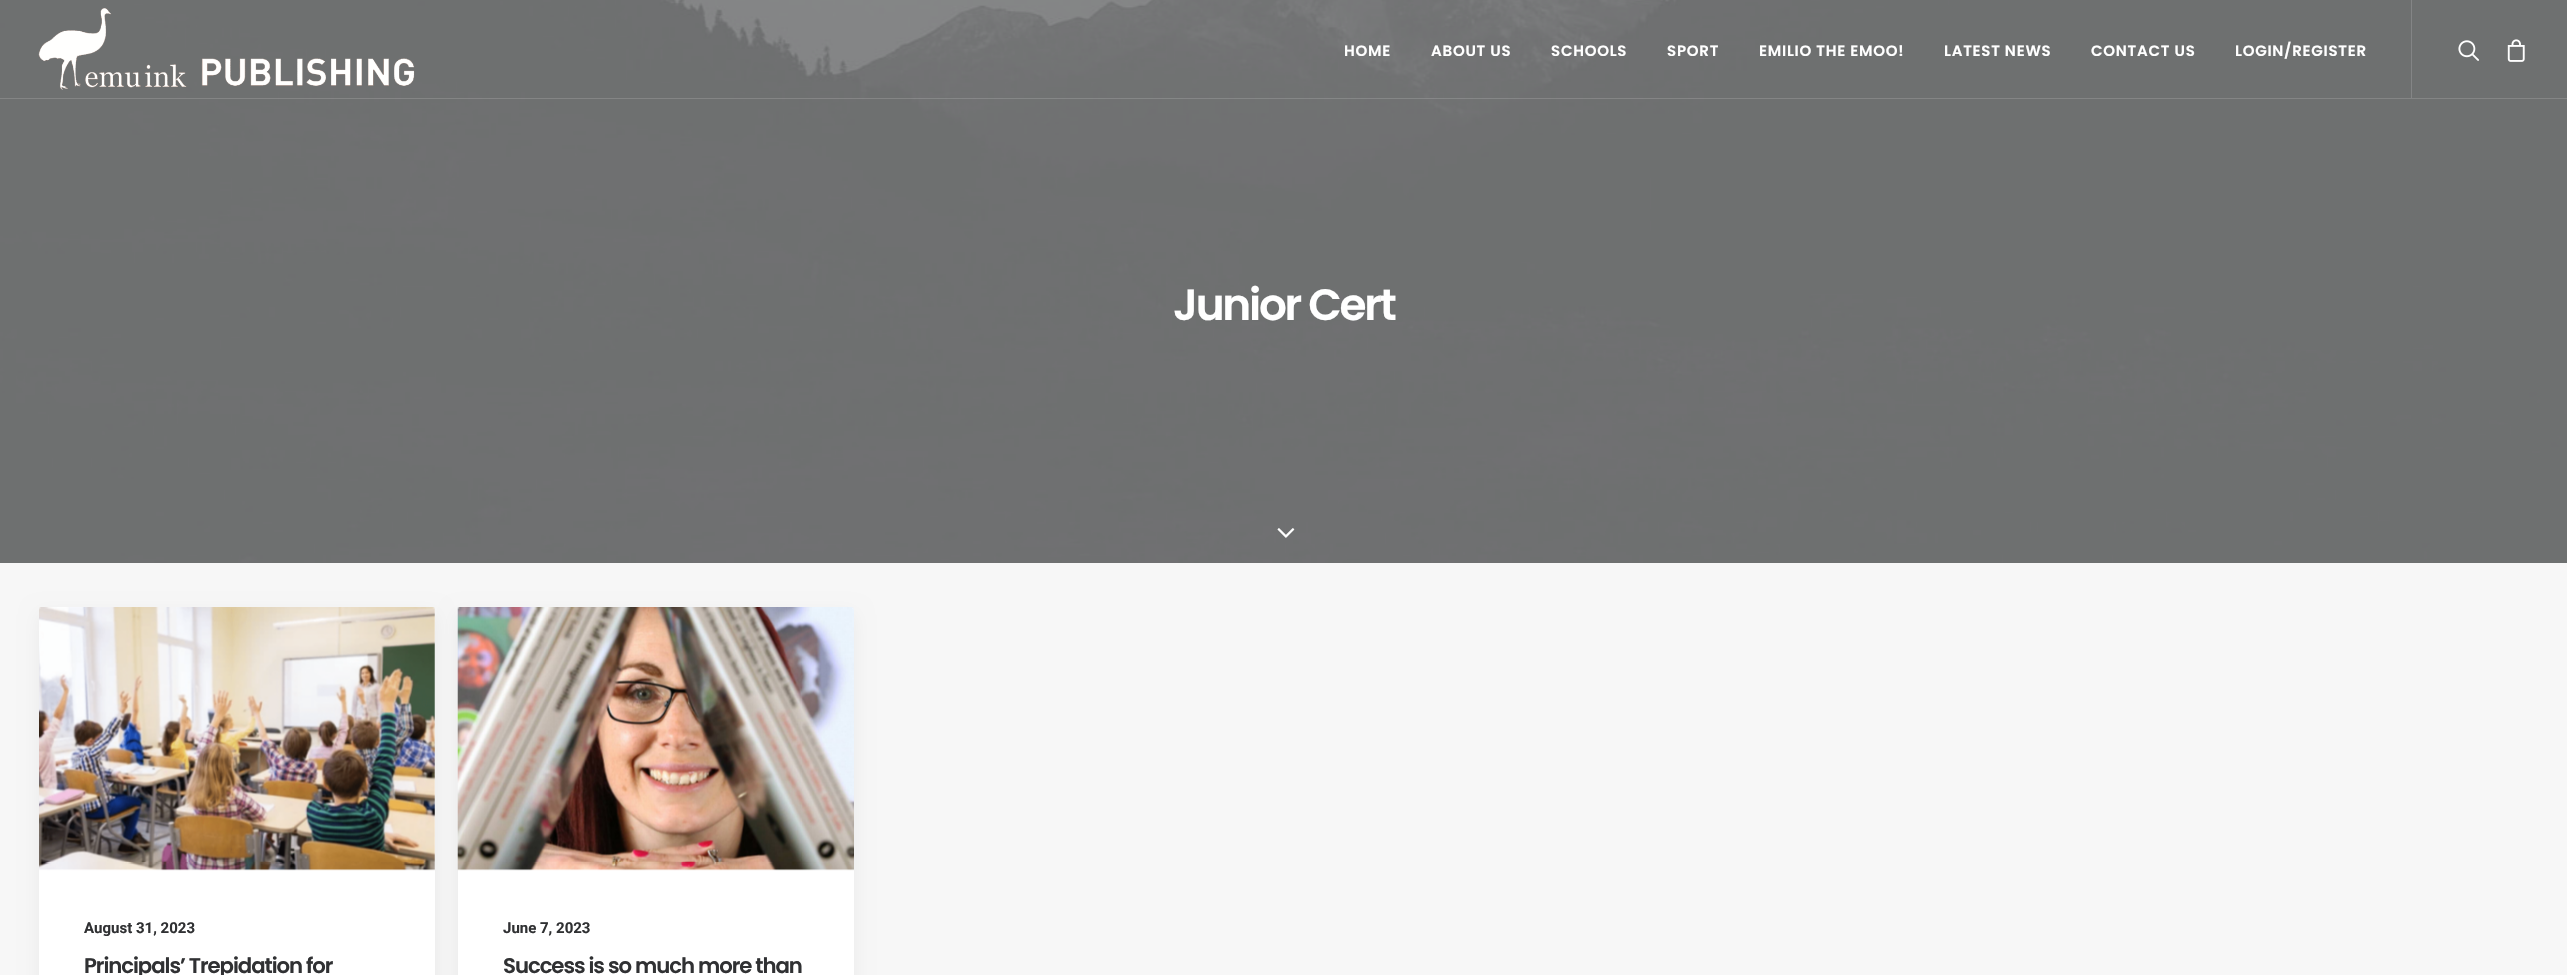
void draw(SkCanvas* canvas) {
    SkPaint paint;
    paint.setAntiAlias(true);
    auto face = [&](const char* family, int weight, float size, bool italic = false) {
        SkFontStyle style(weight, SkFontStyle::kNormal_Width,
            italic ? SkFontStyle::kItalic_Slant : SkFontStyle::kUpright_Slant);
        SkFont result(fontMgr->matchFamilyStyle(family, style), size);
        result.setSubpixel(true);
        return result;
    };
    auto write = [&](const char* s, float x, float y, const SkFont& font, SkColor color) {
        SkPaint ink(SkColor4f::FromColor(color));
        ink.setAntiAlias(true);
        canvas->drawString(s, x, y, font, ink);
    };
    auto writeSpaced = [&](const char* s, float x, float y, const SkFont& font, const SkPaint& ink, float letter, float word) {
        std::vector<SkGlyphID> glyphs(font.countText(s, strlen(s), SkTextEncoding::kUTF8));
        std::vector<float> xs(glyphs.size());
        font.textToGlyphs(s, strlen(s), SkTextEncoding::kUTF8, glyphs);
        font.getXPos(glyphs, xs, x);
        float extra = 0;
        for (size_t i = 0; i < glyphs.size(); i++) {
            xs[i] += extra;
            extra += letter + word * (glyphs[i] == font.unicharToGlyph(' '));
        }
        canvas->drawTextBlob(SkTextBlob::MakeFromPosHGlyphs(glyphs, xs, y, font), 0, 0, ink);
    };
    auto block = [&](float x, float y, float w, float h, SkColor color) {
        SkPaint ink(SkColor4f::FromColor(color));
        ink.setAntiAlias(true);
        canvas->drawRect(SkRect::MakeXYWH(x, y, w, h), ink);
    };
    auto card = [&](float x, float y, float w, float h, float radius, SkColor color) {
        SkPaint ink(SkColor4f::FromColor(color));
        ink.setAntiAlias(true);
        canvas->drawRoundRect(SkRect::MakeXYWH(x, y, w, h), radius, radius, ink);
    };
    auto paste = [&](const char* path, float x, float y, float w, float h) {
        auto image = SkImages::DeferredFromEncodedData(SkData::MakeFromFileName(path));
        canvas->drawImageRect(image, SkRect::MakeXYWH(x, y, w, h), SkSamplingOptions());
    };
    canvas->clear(SK_ColorWHITE);
    paste("pic4.png", 0, 0, 2567, 563);
    block(0, 98, 2567, 1, SkColorSetARGB(38, 255, 255, 255));
    paste("pic1.png", 38, 8, 377, 82);
    auto kFont1 = face("Poppins", 600, 15);
    paint.setColor(SK_ColorWHITE);
    writeSpaced("HOME", 1344, 56, kFont1, paint, 0.75f, 0);
    writeSpaced("ABOUT US", 1431, 56, kFont1, paint, 0.75f, 0);
    writeSpaced("SCHOOLS", 1551, 56, kFont1, paint, 0.75f, 0);
    writeSpaced("SPORT", 1667, 56, kFont1, paint, 0.75f, 0);
    writeSpaced("EMILIO THE EMOO!", 1759, 56, kFont1, paint, 0.75f, 0);
    writeSpaced("LATEST NEWS", 1944, 56, kFont1, paint, 0.75f, 0);
    writeSpaced("CONTACT US", 2091, 56, kFont1, paint, 0.75f, 0);
    writeSpaced("LOGIN/REGISTER", 2235, 56, kFont1, paint, 0.75f, 0);
    block(2411, 0, 1, 98, SkColorSetRGB(132, 133, 134));
    paste("pic2.png", 2458, 40, 21, 21);
    paste("pic3.png", 2507, 39, 18, 23);
    auto kFont2 = face("Poppins", 600, 43.75f);
    writeSpaced("Junior Cert", 1173, 320, kFont2, paint, -2.25f, 0);
    paste("pic5.png", 1277, 528, 18, 10);
    block(0, 563, 2567, 412, SkColorSetRGB(247, 247, 247));
    paint.setColor(SkColorSetARGB(13, 0, 0, 0));
    paint.setMaskFilter(SkMaskFilter::MakeBlur(kNormal_SkBlurStyle, 9.5f));
    canvas->drawRoundRect(SkRect::MakeXYWH(39, 614, 396, 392), 2.5f, 2.5f, paint);
    paint.setMaskFilter(nullptr);
    card(39, 608, 396, 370, 2.5f, SK_ColorWHITE);
    paste("pic6.png", 39, 607, 396, 264);
    auto kFont3 = face("Roboto", 700, 15);
    write("August 31, 2023", 84, 933, kFont3, SkColorSetRGB(48, 49, 51));
    auto kFont4 = face("Poppins", 600, 21.25f);
    paint.setColor(SkColorSetRGB(48, 49, 51));
    writeSpaced("Principals’ Trepidation for", 84, 973, kFont4, paint, -1.05f, 0);
    paint.setColor(SkColorSetARGB(13, 0, 0, 0));
    paint.setMaskFilter(SkMaskFilter::MakeBlur(kNormal_SkBlurStyle, 9.5f));
    canvas->drawRoundRect(SkRect::MakeXYWH(458, 614, 396, 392), 2.5f, 2.5f, paint);
    paint.setMaskFilter(nullptr);
    card(458, 608, 396, 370, 2.5f, SK_ColorWHITE);
    paste("pic7.png", 457, 607, 397, 264);
    write("June 7, 2023", 503, 933, kFont3, SkColorSetRGB(48, 49, 51));
    paint.setColor(SkColorSetRGB(48, 49, 51));
    writeSpaced("Success is so much more than", 503, 973, kFont4, paint, -1.05f, 0);
}
